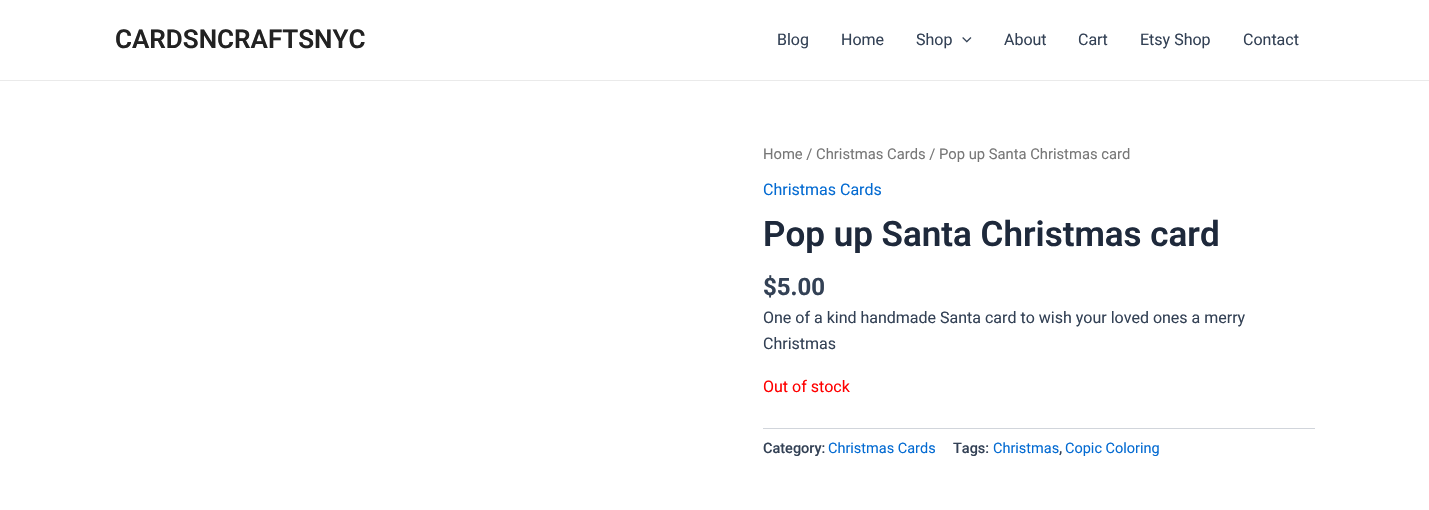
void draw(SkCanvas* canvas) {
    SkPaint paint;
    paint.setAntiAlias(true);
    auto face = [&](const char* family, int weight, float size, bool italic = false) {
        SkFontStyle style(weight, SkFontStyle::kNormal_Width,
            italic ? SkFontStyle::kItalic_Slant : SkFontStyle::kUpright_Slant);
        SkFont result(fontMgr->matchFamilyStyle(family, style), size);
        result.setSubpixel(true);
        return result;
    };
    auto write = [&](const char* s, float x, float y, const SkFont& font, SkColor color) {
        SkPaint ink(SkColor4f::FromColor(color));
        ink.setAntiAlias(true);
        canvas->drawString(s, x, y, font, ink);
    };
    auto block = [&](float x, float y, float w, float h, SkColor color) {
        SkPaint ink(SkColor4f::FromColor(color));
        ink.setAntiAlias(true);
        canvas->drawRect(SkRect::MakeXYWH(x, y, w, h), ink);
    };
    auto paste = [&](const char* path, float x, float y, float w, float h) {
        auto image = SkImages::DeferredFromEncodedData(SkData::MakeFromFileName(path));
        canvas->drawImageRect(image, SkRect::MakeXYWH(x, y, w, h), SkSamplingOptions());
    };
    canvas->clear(SK_ColorWHITE);
    block(0, 80, 1429, 1, SkColorSetRGB(234, 234, 234));
    auto kFont1 = face("Roboto", 600, 26);
    write("CARDSNCRAFTSNYC", 115, 48, kFont1, SkColorSetRGB(34, 34, 34));
    auto kFont2 = face("Roboto", 400, 16);
    write("Blog", 777, 45, kFont2, SkColorSetRGB(51, 65, 85));
    write("Home", 841, 45, kFont2, SkColorSetRGB(51, 65, 85));
    write("Shop", 916, 45, kFont2, SkColorSetRGB(51, 65, 85));
    paste("pic1.png", 962, 37, 10, 6);
    write("About", 1004, 45, kFont2, SkColorSetRGB(51, 65, 85));
    write("Cart", 1078, 45, kFont2, SkColorSetRGB(51, 65, 85));
    write("Etsy Shop", 1140, 45, kFont2, SkColorSetRGB(51, 65, 85));
    write("Contact", 1243, 45, kFont2, SkColorSetRGB(51, 65, 85));
    auto kFont3 = face("Roboto", 400, 14.75f);
    write("Home / Christmas Cards / Pop up Santa Christmas card", 763, 159, kFont3, SkColorSetRGB(119, 119, 119));
    write("Christmas Cards", 763, 195, kFont2, SkColorSetRGB(4, 107, 210));
    auto kFont4 = face("Roboto", 600, 35);
    write("Pop up Santa Christmas card", 763, 246, kFont4, SkColorSetRGB(30, 41, 59));
    auto kFont5 = face("Roboto", 700, 24);
    write("$5.00", 763, 295, kFont5, SkColorSetRGB(51, 65, 85));
    write("One of a kind handmade Santa card to wish your loved ones a merry", 763, 323, kFont2, SkColorSetRGB(51, 65, 85));
    write("Christmas", 763, 349, kFont2, SkColorSetRGB(51, 65, 85));
    write("Out of stock", 763, 392, kFont2, SkColorSetRGB(255, 0, 0));
    block(763, 428, 552, 1, SkColorSetRGB(209, 213, 219));
    auto kFont6 = face("Roboto", 500, 14.5f);
    write("Category:", 763, 453, kFont6, SkColorSetRGB(51, 65, 85));
    auto kFont7 = face("Roboto", 400, 14.5f);
    write("Christmas Cards", 828, 453, kFont7, SkColorSetRGB(4, 107, 210));
    write("Tags:", 953, 453, kFont6, SkColorSetRGB(51, 65, 85));
    write("Christmas", 993, 453, kFont7, SkColorSetRGB(4, 107, 210));
    write(",", 1059, 453, kFont6, SkColorSetRGB(51, 65, 85));
    write("Copic Coloring", 1065, 453, kFont7, SkColorSetRGB(4, 107, 210));
}
